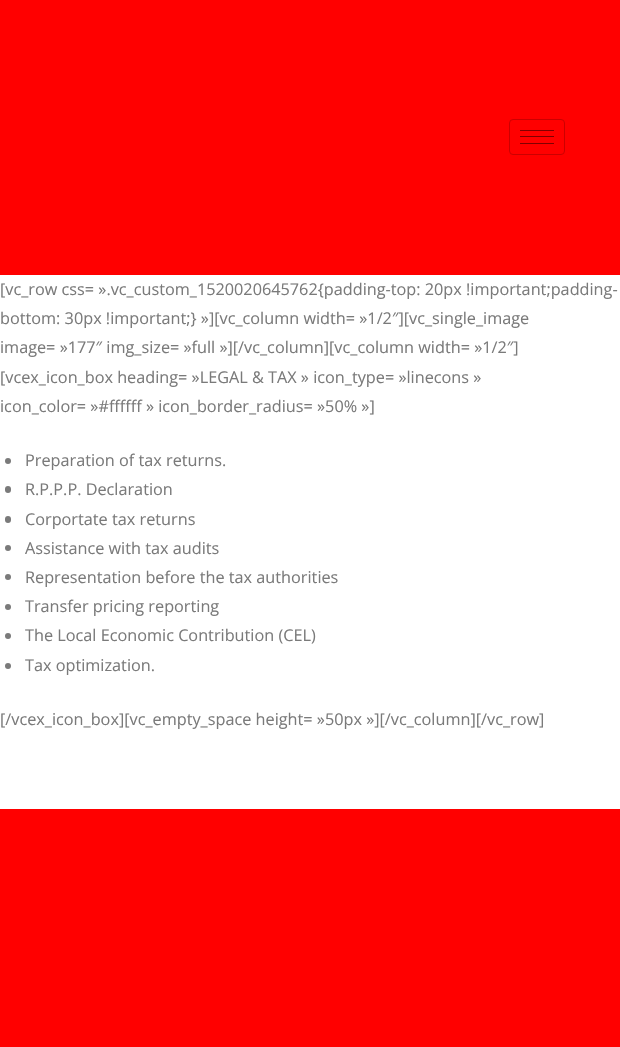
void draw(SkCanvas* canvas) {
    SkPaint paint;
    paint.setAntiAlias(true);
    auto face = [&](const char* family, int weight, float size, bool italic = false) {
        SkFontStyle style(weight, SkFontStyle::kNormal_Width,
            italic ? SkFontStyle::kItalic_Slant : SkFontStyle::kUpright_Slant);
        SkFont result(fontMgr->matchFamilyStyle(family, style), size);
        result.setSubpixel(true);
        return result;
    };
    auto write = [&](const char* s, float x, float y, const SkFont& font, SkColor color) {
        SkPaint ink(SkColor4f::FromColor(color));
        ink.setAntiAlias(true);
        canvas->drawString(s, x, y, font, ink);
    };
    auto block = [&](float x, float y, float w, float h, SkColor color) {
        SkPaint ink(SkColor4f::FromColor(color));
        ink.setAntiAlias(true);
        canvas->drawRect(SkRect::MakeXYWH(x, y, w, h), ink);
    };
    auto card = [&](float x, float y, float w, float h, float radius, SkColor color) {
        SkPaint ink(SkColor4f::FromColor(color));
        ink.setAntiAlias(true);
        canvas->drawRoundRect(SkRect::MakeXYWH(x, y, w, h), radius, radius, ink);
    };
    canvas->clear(SK_ColorWHITE);
    block(0, 0, 620, 275, SkColorSetRGB(255, 0, 0));
    paint.setStyle(SkPaint::kStroke_Style);
    paint.setStrokeWidth(1);
    paint.setColor(SkColorSetRGB(204, 0, 0));
    canvas->drawRoundRect(SkRect::MakeXYWH(509.5f, 119.5f, 55, 35), 3.5f, 3.5f, paint);
    block(520, 130, 34, 1, SkColorSetRGB(128, 0, 0));
    block(520, 136, 34, 1, SkColorSetRGB(128, 0, 0));
    block(520, 143, 34, 1, SkColorSetRGB(128, 0, 0));
    auto kFont1 = face("Open Sans", 400, 16.25f);
    write("[vc_row css= ».vc_custom_1520020645762{padding-top: 20px !important;padding-", 0, 295, kFont1, SkColorSetRGB(122, 122, 122));
    write("bottom: 30px !important;} »][vc_column width= »1/2″][vc_single_image", 0, 324, kFont1, SkColorSetRGB(122, 122, 122));
    write("image= »177″ img_size= »full »][/vc_column][vc_column width= »1/2″]", 0, 353, kFont1, SkColorSetRGB(122, 122, 122));
    write("[vcex_icon_box heading= »LEGAL & TAX » icon_type= »linecons »", 0, 383, kFont1, SkColorSetRGB(122, 122, 122));
    write("icon_color= »#ffffff » icon_border_radius= »50% »]", 0, 412, kFont1, SkColorSetRGB(122, 122, 122));
    paint.setStyle(SkPaint::kFill_Style);
    paint.setColor(SkColorSetRGB(122, 122, 122));
    canvas->drawCircle(8, 461, 3, paint);
    write("Preparation of tax returns.", 25, 466, kFont1, SkColorSetRGB(122, 122, 122));
    card(5, 486, 6, 7, 3, SkColorSetRGB(122, 122, 122));
    write("R.P.P.P. Declaration", 25, 495, kFont1, SkColorSetRGB(122, 122, 122));
    card(5, 516, 6, 7, 3, SkColorSetRGB(122, 122, 122));
    write("Corportate tax returns", 25, 525, kFont1, SkColorSetRGB(122, 122, 122));
    canvas->drawCircle(8, 548, 3, paint);
    write("Assistance with tax audits", 25, 554, kFont1, SkColorSetRGB(122, 122, 122));
    canvas->drawCircle(8, 577, 3, paint);
    write("Representation before the tax authorities", 25, 583, kFont1, SkColorSetRGB(122, 122, 122));
    canvas->drawCircle(8, 607, 3, paint);
    write("Transfer pricing reporting", 25, 612, kFont1, SkColorSetRGB(122, 122, 122));
    canvas->drawCircle(8, 636, 3, paint);
    write("The Local Economic Contribution (CEL)", 25, 641, kFont1, SkColorSetRGB(122, 122, 122));
    canvas->drawCircle(8, 666, 3, paint);
    write("Tax optimization.", 25, 671, kFont1, SkColorSetRGB(122, 122, 122));
    write("[/vcex_icon_box][vc_empty_space height= »50px »][/vc_column][/vc_row]", 0, 725, kFont1, SkColorSetRGB(122, 122, 122));
    block(0, 809, 620, 238, SkColorSetRGB(255, 0, 0));
}
